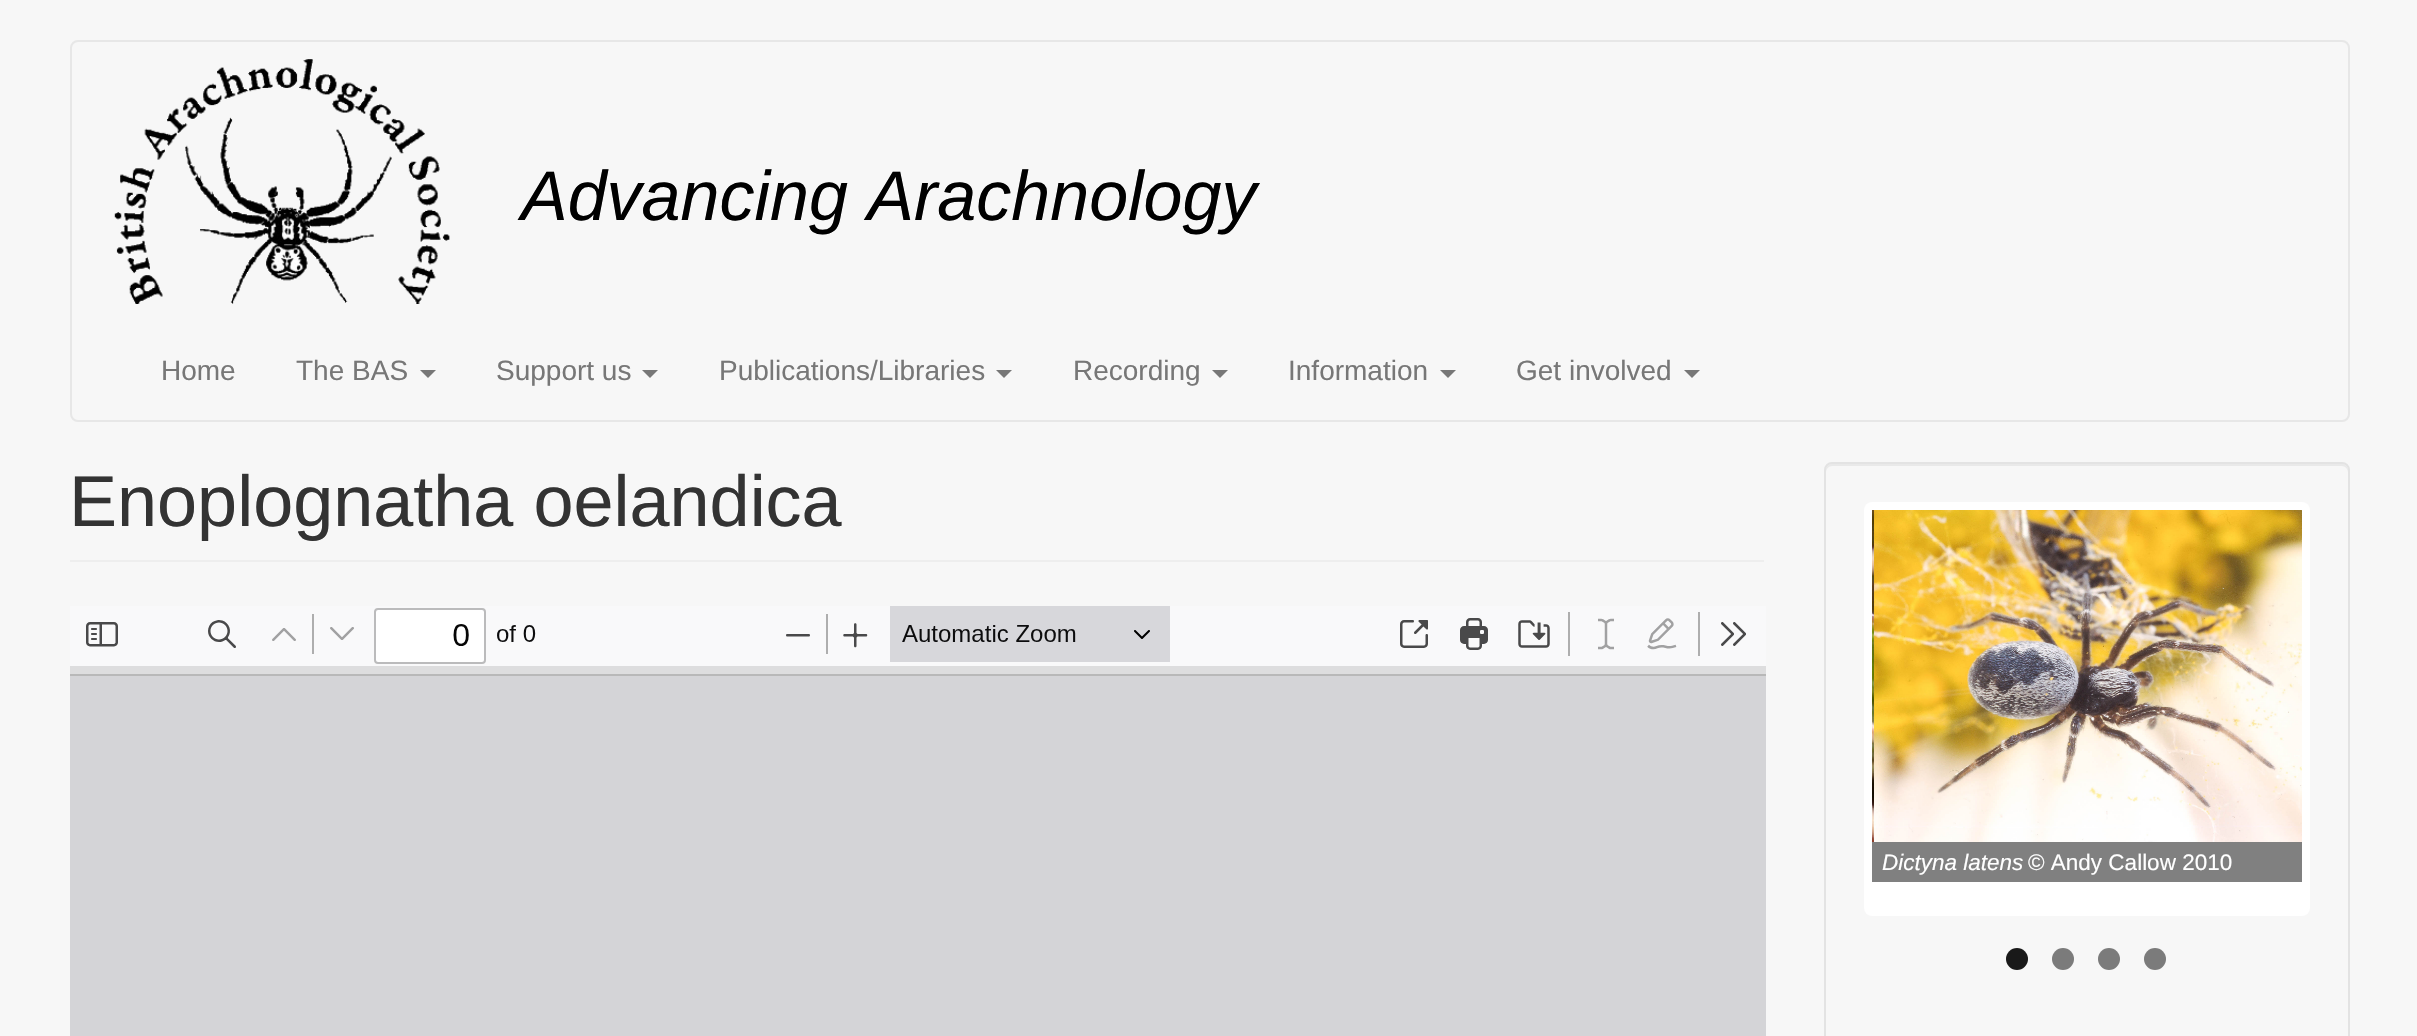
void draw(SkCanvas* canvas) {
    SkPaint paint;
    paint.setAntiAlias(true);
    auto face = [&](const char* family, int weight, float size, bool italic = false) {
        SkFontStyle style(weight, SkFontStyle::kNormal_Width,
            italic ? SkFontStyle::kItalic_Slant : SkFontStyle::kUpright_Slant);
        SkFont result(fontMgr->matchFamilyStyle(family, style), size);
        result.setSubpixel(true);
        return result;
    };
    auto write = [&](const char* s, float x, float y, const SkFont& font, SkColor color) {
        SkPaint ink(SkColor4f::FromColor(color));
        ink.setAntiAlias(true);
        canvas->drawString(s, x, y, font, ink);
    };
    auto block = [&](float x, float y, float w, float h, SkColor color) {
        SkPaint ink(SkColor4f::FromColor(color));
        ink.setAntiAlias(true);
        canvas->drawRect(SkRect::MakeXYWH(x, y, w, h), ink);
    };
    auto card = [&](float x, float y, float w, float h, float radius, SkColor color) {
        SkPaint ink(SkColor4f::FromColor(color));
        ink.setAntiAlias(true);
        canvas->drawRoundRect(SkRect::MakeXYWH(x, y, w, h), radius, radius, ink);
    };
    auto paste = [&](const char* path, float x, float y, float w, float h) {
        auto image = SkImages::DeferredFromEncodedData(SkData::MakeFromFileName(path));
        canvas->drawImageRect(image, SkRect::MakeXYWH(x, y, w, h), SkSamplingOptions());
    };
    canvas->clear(SkColorSetRGB(247, 247, 247));
    paint.setStyle(SkPaint::kStroke_Style);
    paint.setStrokeWidth(2);
    paint.setColor(SkColorSetRGB(231, 231, 231));
    canvas->drawRoundRect(SkRect::MakeXYWH(71, 41, 2278, 380), 7, 7, paint);
    paste("pic1.png", 114, 59, 336, 245);
    auto kFont1 = face("Liberation Sans", 400, 70, true);
    write("Advancing Arachnology", 521, 220, kFont1, SK_ColorBLACK);
    auto kFont2 = face("Liberation Sans", 400, 28);
    write("Home", 161, 380, kFont2, SkColorSetRGB(119, 119, 119));
    write("The BAS", 296, 380, kFont2, SkColorSetRGB(119, 119, 119));
    paint.setStyle(SkPaint::kFill_Style);
    paint.setColor(SkColorSetRGB(119, 119, 119));
    canvas->drawPath(SkPathBuilder().moveTo(420, 370).lineTo(436, 370).lineTo(428, 378).close().detach(), paint);
    write("Support us", 496, 380, kFont2, SkColorSetRGB(119, 119, 119));
    canvas->drawPath(SkPathBuilder().moveTo(642, 370).lineTo(658, 370).lineTo(650, 378).close().detach(), paint);
    write("Publications/Libraries", 719, 380, kFont2, SkColorSetRGB(119, 119, 119));
    canvas->drawPath(SkPathBuilder().moveTo(996, 370).lineTo(1012, 370).lineTo(1004, 378).close().detach(), paint);
    write("Recording", 1073, 380, kFont2, SkColorSetRGB(119, 119, 119));
    canvas->drawPath(SkPathBuilder().moveTo(1212, 370).lineTo(1228, 370).lineTo(1220, 378).close().detach(), paint);
    write("Information", 1288, 380, kFont2, SkColorSetRGB(119, 119, 119));
    canvas->drawPath(SkPathBuilder().moveTo(1440, 370).lineTo(1456, 370).lineTo(1448, 378).close().detach(), paint);
    write("Get involved", 1516, 380, kFont2, SkColorSetRGB(119, 119, 119));
    canvas->drawPath(SkPathBuilder().moveTo(1684, 370).lineTo(1700, 370).lineTo(1692, 378).close().detach(), paint);
    block(70, 560, 1694, 2, SkColorSetRGB(238, 238, 238));
    auto kFont3 = face("Liberation Sans", 400, 72);
    write("Enoplognatha oelandica", 69, 526, kFont3, SkColorSetRGB(51, 51, 51));
    paste("pic2.png", 70, 606, 1696, 430);
    paint.setColor(SkColorSetRGB(233, 233, 233));
    canvas->drawPath(SkPathBuilder().moveTo(1832, 466).lineTo(2342, 466).cubicTo(2345, 466, 2348, 469, 2348, 472).lineTo(2348, 470).cubicTo(2348, 467, 2345, 464, 2342, 464).lineTo(1832, 464).cubicTo(1829, 464, 1826, 467, 1826, 470).lineTo(1826, 472).cubicTo(1826, 469, 1829, 466, 1832, 466).close().detach(), paint);
    paint.setStyle(SkPaint::kStroke_Style);
    paint.setColor(SkColorSetRGB(227, 227, 227));
    canvas->drawRoundRect(SkRect::MakeXYWH(1825, 463, 524, 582), 7, 7, paint);
    card(1864, 502, 446, 414, 8, SK_ColorWHITE);
    paste("pic3.png", 1872, 510, 2, 332);
    block(1872, 842, 430, 40, SkColorSetRGB(128, 128, 128));
    paste("pic4.png", 1874, 510, 428, 332);
    auto kFont4 = face("Liberation Sans", 400, 22.5f, true);
    write("Dictyna latens", 1882, 870, kFont4, SK_ColorWHITE);
    auto kFont5 = face("Liberation Sans", 400, 22.5f);
    write("© Andy Callow 2010", 2028, 870, kFont5, SK_ColorWHITE);
    paint.setStyle(SkPaint::kFill_Style);
    paint.setColor(SkColorSetRGB(25, 25, 25));
    canvas->drawCircle(2017, 959, 11, paint);
    paint.setColor(SkColorSetRGB(123, 123, 123));
    canvas->drawCircle(2063, 959, 11, paint);
    canvas->drawCircle(2109, 959, 11, paint);
    canvas->drawCircle(2155, 959, 11, paint);
}
